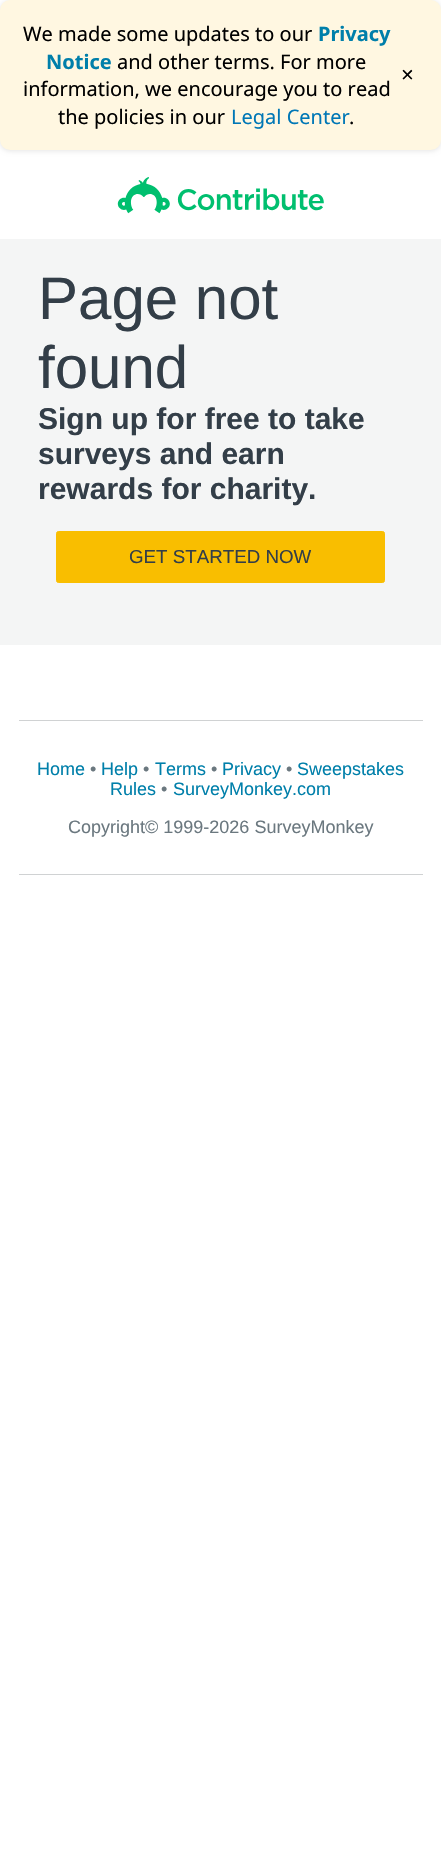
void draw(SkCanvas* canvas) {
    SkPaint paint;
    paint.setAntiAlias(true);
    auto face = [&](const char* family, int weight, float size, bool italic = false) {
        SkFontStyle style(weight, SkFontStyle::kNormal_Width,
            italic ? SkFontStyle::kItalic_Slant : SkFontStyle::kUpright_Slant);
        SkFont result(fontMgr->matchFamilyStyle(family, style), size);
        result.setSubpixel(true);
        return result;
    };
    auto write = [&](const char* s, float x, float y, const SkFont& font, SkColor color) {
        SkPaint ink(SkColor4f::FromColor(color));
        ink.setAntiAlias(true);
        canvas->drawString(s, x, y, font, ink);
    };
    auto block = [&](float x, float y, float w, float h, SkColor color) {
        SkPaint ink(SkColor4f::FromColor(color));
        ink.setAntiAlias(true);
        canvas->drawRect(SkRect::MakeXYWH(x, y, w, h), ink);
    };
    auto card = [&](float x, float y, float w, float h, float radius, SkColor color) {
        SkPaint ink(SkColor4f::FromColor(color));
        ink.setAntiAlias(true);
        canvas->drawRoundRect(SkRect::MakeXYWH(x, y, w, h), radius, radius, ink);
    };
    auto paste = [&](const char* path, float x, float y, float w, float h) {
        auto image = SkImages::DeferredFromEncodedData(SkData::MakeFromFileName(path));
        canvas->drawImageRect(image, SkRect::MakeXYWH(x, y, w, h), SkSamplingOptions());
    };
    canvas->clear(SK_ColorWHITE);
    paint.setColor(SkColorSetARGB(26, 0, 0, 0));
    paint.setMaskFilter(SkMaskFilter::MakeBlur(kNormal_SkBlurStyle, 2.5f));
    canvas->drawRoundRect(SkRect::MakeXYWH(0, 1, 441, 150), 10, 10, paint);
    paint.setMaskFilter(nullptr);
    card(0, 0, 441, 150, 10, SkColorSetRGB(255, 247, 225));
    auto kFont1 = face("Noto Sans", 400, 20);
    write("We made some updates to our", 23, 41, kFont1, SK_ColorBLACK);
    auto kFont2 = face("Noto Sans", 700, 20);
    write("Privacy", 318, 41, kFont2, SkColorSetRGB(0, 127, 170));
    write("Notice", 46, 69, kFont2, SkColorSetRGB(0, 127, 170));
    write("and other terms. For more", 117, 69, kFont1, SK_ColorBLACK);
    write("information, we encourage you to read", 23, 96, kFont1, SK_ColorBLACK);
    write("the policies in our", 58, 124, kFont1, SK_ColorBLACK);
    write("Legal Center", 231, 124, kFont1, SkColorSetRGB(0, 119, 182));
    write(".", 349, 124, kFont1, SK_ColorBLACK);
    auto kFont3 = face("Liberation Sans", 400, 22);
    write("×", 401, 82, kFont3, SK_ColorBLACK);
    paste("pic1.png", 117, 177, 207, 37);
    block(0, 239, 441, 406, SkColorSetRGB(244, 245, 245));
    auto kFont4 = face("Liberation Sans", 400, 60);
    write("Page not", 38, 319, kFont4, SkColorSetRGB(51, 62, 72));
    write("found", 38, 388, kFont4, SkColorSetRGB(51, 62, 72));
    auto kFont5 = face("Liberation Sans", 700, 30);
    write("Sign up for free to take", 38, 429, kFont5, SkColorSetRGB(51, 62, 72));
    write("surveys and earn", 38, 464, kFont5, SkColorSetRGB(51, 62, 72));
    write("rewards for charity.", 38, 499, kFont5, SkColorSetRGB(51, 62, 72));
    paint.setColor(SkColorSetRGB(249, 190, 0));
    canvas->drawRoundRect(SkRect::MakeXYWH(56.5f, 531.5f, 328, 51), 2, 2, paint);
    paint.setStyle(SkPaint::kStroke_Style);
    paint.setStrokeWidth(1);
    canvas->drawRoundRect(SkRect::MakeXYWH(56.5f, 531.5f, 328, 51), 2, 2, paint);
    auto kFont6 = face("Liberation Sans", 400, 18.75f);
    write("GET STARTED NOW", 129, 563, kFont6, SkColorSetRGB(51, 62, 72));
    block(19, 720, 404, 1, SkColorSetRGB(208, 210, 211));
    auto kFont7 = face("Liberation Sans", 400, 18);
    write("Home", 37, 775, kFont7, SkColorSetRGB(0, 127, 170));
    write("•", 90, 775, kFont7, SkColorSetRGB(107, 120, 127));
    write("Help", 101, 775, kFont7, SkColorSetRGB(0, 127, 170));
    write("•", 143, 775, kFont7, SkColorSetRGB(107, 120, 127));
    write("Terms", 155, 775, kFont7, SkColorSetRGB(0, 127, 170));
    write("•", 211, 775, kFont7, SkColorSetRGB(107, 120, 127));
    write("Privacy", 222, 775, kFont7, SkColorSetRGB(0, 127, 170));
    write("•", 286, 775, kFont7, SkColorSetRGB(107, 120, 127));
    write("Sweepstakes", 297, 775, kFont7, SkColorSetRGB(0, 127, 170));
    write("Rules", 110, 795, kFont7, SkColorSetRGB(0, 127, 170));
    write("•", 161, 795, kFont7, SkColorSetRGB(107, 120, 127));
    write("SurveyMonkey.com", 173, 795, kFont7, SkColorSetRGB(0, 127, 170));
    write("Copyright© 1999-2026 SurveyMonkey", 68, 833, kFont7, SkColorSetRGB(107, 120, 127));
    block(19, 874, 404, 1, SkColorSetRGB(208, 210, 211));
}
